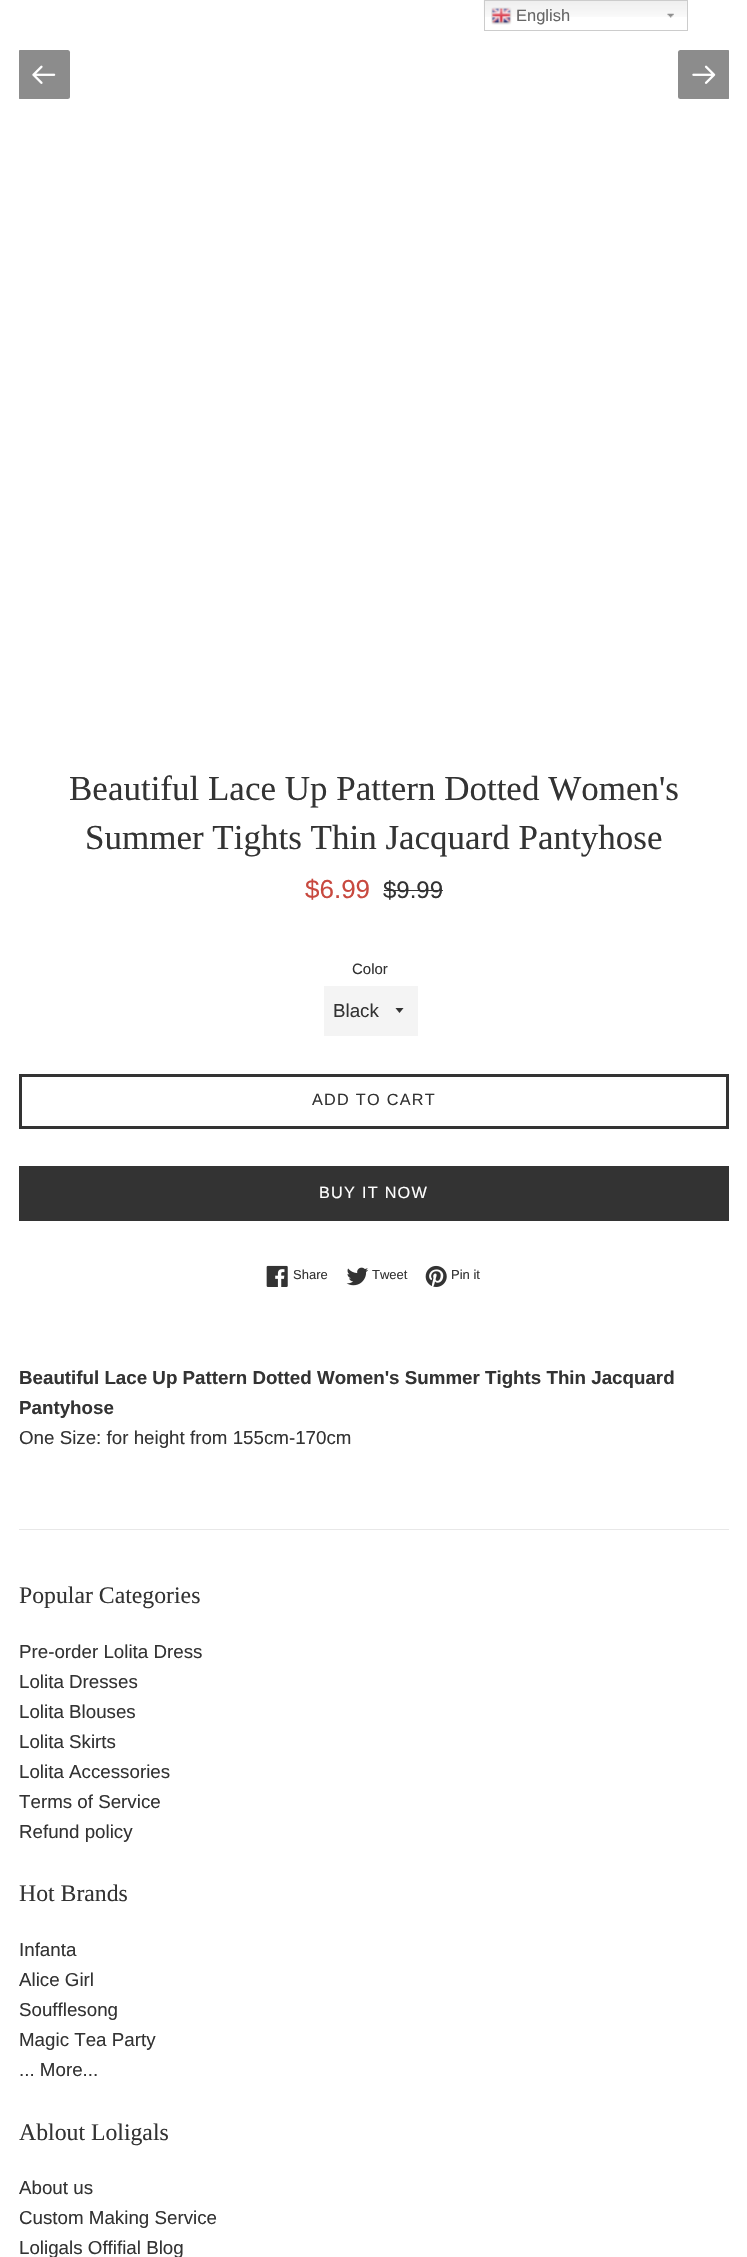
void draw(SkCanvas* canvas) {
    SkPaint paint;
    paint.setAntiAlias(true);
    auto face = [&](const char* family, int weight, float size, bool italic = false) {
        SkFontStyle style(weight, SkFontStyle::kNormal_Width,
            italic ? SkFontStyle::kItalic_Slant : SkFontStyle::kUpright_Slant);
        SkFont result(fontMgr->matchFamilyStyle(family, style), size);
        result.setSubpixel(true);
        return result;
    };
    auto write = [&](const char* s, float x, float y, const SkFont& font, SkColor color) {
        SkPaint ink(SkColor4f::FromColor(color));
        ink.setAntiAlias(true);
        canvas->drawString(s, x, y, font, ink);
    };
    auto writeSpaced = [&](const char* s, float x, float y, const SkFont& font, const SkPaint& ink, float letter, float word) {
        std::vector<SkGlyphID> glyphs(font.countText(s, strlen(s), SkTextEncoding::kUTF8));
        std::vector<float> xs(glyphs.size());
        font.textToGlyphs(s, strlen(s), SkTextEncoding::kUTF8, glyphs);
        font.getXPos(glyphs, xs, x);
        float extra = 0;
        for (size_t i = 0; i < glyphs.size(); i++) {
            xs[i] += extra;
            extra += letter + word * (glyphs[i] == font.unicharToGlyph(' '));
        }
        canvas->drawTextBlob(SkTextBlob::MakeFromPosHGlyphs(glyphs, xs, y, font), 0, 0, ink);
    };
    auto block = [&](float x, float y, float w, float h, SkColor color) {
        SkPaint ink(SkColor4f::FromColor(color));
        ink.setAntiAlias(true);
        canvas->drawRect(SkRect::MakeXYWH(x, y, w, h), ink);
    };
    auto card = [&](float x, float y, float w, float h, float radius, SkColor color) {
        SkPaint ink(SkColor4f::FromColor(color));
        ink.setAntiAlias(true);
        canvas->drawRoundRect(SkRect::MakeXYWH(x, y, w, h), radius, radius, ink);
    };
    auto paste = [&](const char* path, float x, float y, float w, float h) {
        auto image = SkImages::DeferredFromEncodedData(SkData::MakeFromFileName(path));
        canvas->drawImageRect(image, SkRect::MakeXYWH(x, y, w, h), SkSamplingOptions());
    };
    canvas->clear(SK_ColorWHITE);
    paste("pic1.png", 483, 0, 204, 17);
    paste("pic2.png", 667, 13, 7, 5);
    paint.setStyle(SkPaint::kStroke_Style);
    paint.setStrokeWidth(1);
    paint.setColor(SkColorSetRGB(204, 204, 204));
    canvas->drawRect(SkRect::MakeXYWH(484.5f, 0.5f, 203, 30), paint);
    paste("pic3.png", 491, 7, 21, 18);
    auto kFont1 = face("Liberation Sans", 400, 16.5f);
    write("English", 516, 21, kFont1, SkColorSetRGB(102, 102, 102));
    canvas->save();
    canvas->clipRect(SkRect::MakeXYWH(19, 0, 710, 745));
    card(18, 50, 52, 49, 2.5f, SkColorSetRGB(140, 140, 140));
    canvas->restore();
    paste("pic4.png", 32, 65, 24, 19);
    canvas->save();
    canvas->clipRect(SkRect::MakeXYWH(19, 0, 710, 745));
    card(678, 50, 52, 49, 2.5f, SkColorSetRGB(140, 140, 140));
    canvas->restore();
    paste("pic5.png", 692, 65, 24, 19);
    auto kFont2 = face("Liberation Serif", 400, 35);
    write("Beautiful Lace Up Pattern Dotted Women's", 69, 800, kFont2, SkColorSetRGB(51, 51, 51));
    write("Summer Tights Thin Jacquard Pantyhose", 85, 849, kFont2, SkColorSetRGB(51, 51, 51));
    auto kFont3 = face("Liberation Sans", 400, 26);
    write("$6.99", 305, 898, kFont3, SkColorSetRGB(200, 73, 63));
    auto kFont4 = face("Liberation Sans", 400, 24);
    write("$9.99", 383, 898, kFont4, SkColorSetRGB(51, 51, 51));
    block(384, 890, 59, 1, SkColorSetRGB(51, 51, 51));
    auto kFont5 = face("Liberation Sans", 400, 15);
    write("Color", 352, 974, kFont5, SkColorSetRGB(51, 51, 51));
    block(324, 986, 94, 50, SkColorSetRGB(244, 244, 244));
    canvas->save();
    canvas->clipRect(SkRect::MakeXYWH(395, 1008, 10, 6));
    paint.setStyle(SkPaint::kFill_Style);
    paint.setColor(SkColorSetRGB(51, 51, 51));
    canvas->drawPath(SkPathBuilder().moveTo(395, 1007.5f).lineTo(399.5f, 1013).lineTo(404, 1007.5f).close().detach(), paint);
    canvas->restore();
    auto kFont6 = face("Liberation Sans", 400, 18.75f);
    write("Black", 333, 1017, kFont6, SkColorSetRGB(51, 51, 51));
    paint.setStyle(SkPaint::kStroke_Style);
    paint.setStrokeWidth(3);
    canvas->drawRect(SkRect::MakeXYWH(20.5f, 1075.5f, 707, 52), paint);
    auto kFont7 = face("Liberation Sans", 400, 16.25f);
    paint.setStyle(SkPaint::kFill_Style);
    writeSpaced("ADD TO CART", 312, 1105, kFont7, paint, 1.25f, 0);
    block(19, 1166, 710, 55, SkColorSetRGB(51, 51, 51));
    paint.setColor(SK_ColorWHITE);
    writeSpaced("BUY IT NOW", 319, 1198, kFont7, paint, 1.25f, 0);
    paste("pic6.png", 266, 1265, 22, 22);
    auto kFont8 = face("Liberation Sans", 400, 13);
    write("Share", 293, 1279, kFont8, SkColorSetRGB(51, 51, 51));
    paste("pic7.png", 346, 1267, 23, 19);
    write("Tweet", 372, 1279, kFont8, SkColorSetRGB(51, 51, 51));
    paste("pic8.png", 425, 1265, 22, 22);
    write("Pin it", 451, 1279, kFont8, SkColorSetRGB(51, 51, 51));
    auto kFont9 = face("Liberation Sans", 700, 18.75f);
    write("Beautiful Lace Up Pattern Dotted Women's Summer Tights Thin Jacquard", 19, 1384, kFont9, SkColorSetRGB(51, 51, 51));
    write("Pantyhose", 19, 1414, kFont9, SkColorSetRGB(51, 51, 51));
    write("One Size: for height from 155cm-170cm", 19, 1444, kFont6, SkColorSetRGB(51, 51, 51));
    block(19, 1529, 710, 1, SkColorSetRGB(232, 232, 232));
    auto kFont10 = face("Liberation Serif", 400, 23.75f);
    write("Popular Categories", 19, 1603, kFont10, SkColorSetRGB(51, 51, 51));
    write("Pre-order Lolita Dress", 19, 1658, kFont6, SkColorSetRGB(51, 51, 51));
    write("Lolita Dresses", 19, 1688, kFont6, SkColorSetRGB(51, 51, 51));
    write("Lolita Blouses", 19, 1718, kFont6, SkColorSetRGB(51, 51, 51));
    write("Lolita Skirts", 19, 1748, kFont6, SkColorSetRGB(51, 51, 51));
    write("Lolita Accessories", 19, 1778, kFont6, SkColorSetRGB(51, 51, 51));
    write("Terms of Service", 19, 1808, kFont6, SkColorSetRGB(51, 51, 51));
    write("Refund policy", 19, 1838, kFont6, SkColorSetRGB(51, 51, 51));
    write("Hot Brands", 19, 1901, kFont10, SkColorSetRGB(51, 51, 51));
    write("Infanta", 19, 1956, kFont6, SkColorSetRGB(51, 51, 51));
    write("Alice Girl", 19, 1986, kFont6, SkColorSetRGB(51, 51, 51));
    write("Soufflesong", 19, 2016, kFont6, SkColorSetRGB(51, 51, 51));
    write("Magic Tea Party", 19, 2046, kFont6, SkColorSetRGB(51, 51, 51));
    write("... More...", 19, 2076, kFont6, SkColorSetRGB(51, 51, 51));
    write("Ablout Loligals", 19, 2140, kFont10, SkColorSetRGB(51, 51, 51));
    write("About us", 19, 2194, kFont6, SkColorSetRGB(51, 51, 51));
    write("Custom Making Service", 19, 2224, kFont6, SkColorSetRGB(51, 51, 51));
    write("Loligals Offifial Blog", 19, 2254, kFont6, SkColorSetRGB(51, 51, 51));
}
